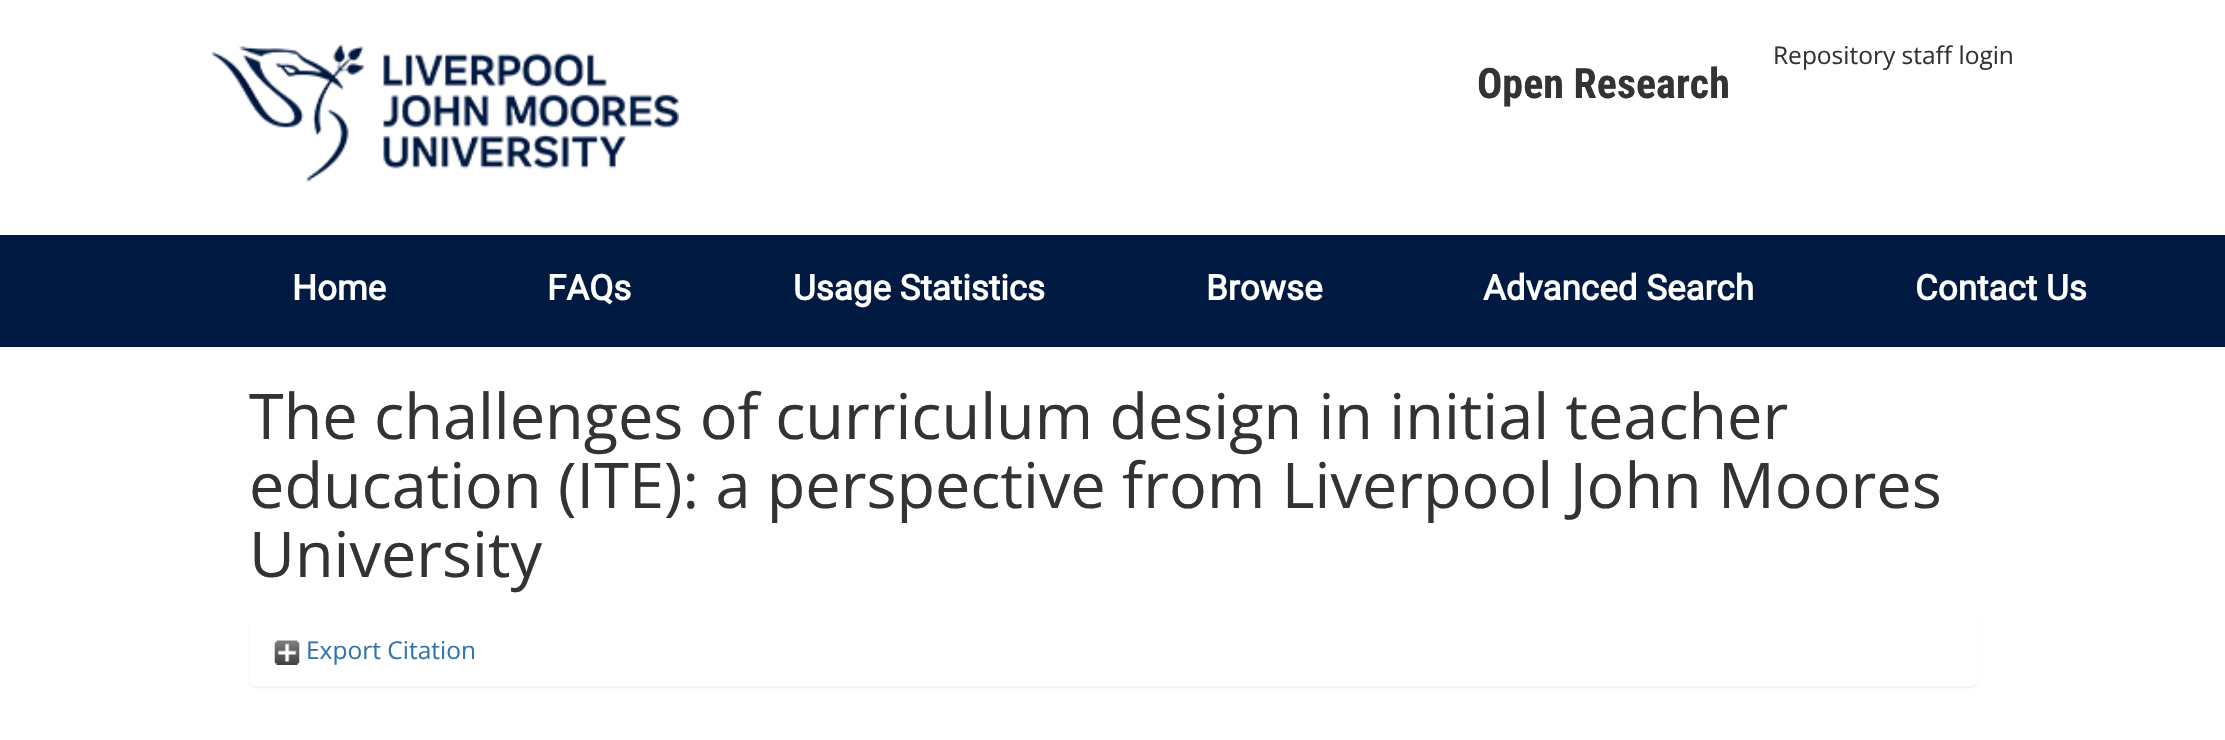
void draw(SkCanvas* canvas) {
    SkPaint paint;
    paint.setAntiAlias(true);
    auto face = [&](const char* family, int weight, float size, bool italic = false) {
        SkFontStyle style(weight, SkFontStyle::kNormal_Width,
            italic ? SkFontStyle::kItalic_Slant : SkFontStyle::kUpright_Slant);
        SkFont result(fontMgr->matchFamilyStyle(family, style), size);
        result.setSubpixel(true);
        return result;
    };
    auto write = [&](const char* s, float x, float y, const SkFont& font, SkColor color) {
        SkPaint ink(SkColor4f::FromColor(color));
        ink.setAntiAlias(true);
        canvas->drawString(s, x, y, font, ink);
    };
    auto block = [&](float x, float y, float w, float h, SkColor color) {
        SkPaint ink(SkColor4f::FromColor(color));
        ink.setAntiAlias(true);
        canvas->drawRect(SkRect::MakeXYWH(x, y, w, h), ink);
    };
    auto card = [&](float x, float y, float w, float h, float radius, SkColor color) {
        SkPaint ink(SkColor4f::FromColor(color));
        ink.setAntiAlias(true);
        canvas->drawRoundRect(SkRect::MakeXYWH(x, y, w, h), radius, radius, ink);
    };
    auto paste = [&](const char* path, float x, float y, float w, float h) {
        auto image = SkImages::DeferredFromEncodedData(SkData::MakeFromFileName(path));
        canvas->drawImageRect(image, SkRect::MakeXYWH(x, y, w, h), SkSamplingOptions());
    };
    canvas->clear(SK_ColorWHITE);
    paste("pic1.png", 211, 44, 468, 138);
    auto kFont1 = face("Open Sans", 400, 24.5f);
    write("Repository staff login", 1773, 64, kFont1, SkColorSetRGB(51, 51, 51));
    auto kFont2 = face("Roboto Condensed", 700, 42);
    write("Open Research", 1477, 98, kFont2, SkColorSetRGB(51, 51, 51));
    block(0, 235, 2225, 112, SkColorSetRGB(1, 26, 66));
    auto kFont3 = face("Roboto", 700, 35);
    write("Home", 292, 300, kFont3, SK_ColorWHITE);
    write("FAQs", 547, 300, kFont3, SK_ColorWHITE);
    write("Usage Statistics", 793, 300, kFont3, SK_ColorWHITE);
    write("Browse", 1206, 300, kFont3, SK_ColorWHITE);
    write("Advanced Search", 1483, 300, kFont3, SK_ColorWHITE);
    write("Contact Us", 1915, 300, kFont3, SK_ColorWHITE);
    auto kFont4 = face("Open Sans", 400, 63);
    write("The challenges of curriculum design in initial teacher", 249, 439, kFont4, SkColorSetRGB(51, 51, 51));
    write("education (ITE): a perspective from Liverpool John Moores", 249, 508, kFont4, SkColorSetRGB(51, 51, 51));
    write("University", 249, 577, kFont4, SkColorSetRGB(51, 51, 51));
    paint.setColor(SkColorSetARGB(13, 0, 0, 0));
    paint.setMaskFilter(SkMaskFilter::MakeBlur(kNormal_SkBlurStyle, 1));
    canvas->drawRoundRect(SkRect::MakeXYWH(249, 616, 1729, 72), 7, 7, paint);
    paint.setMaskFilter(nullptr);
    card(249, 614, 1729, 72, 7, SK_ColorWHITE);
    paste("pic2.png", 274, 640, 26, 25);
    write("Export Citation", 306, 659, kFont1, SkColorSetRGB(49, 116, 175));
}
